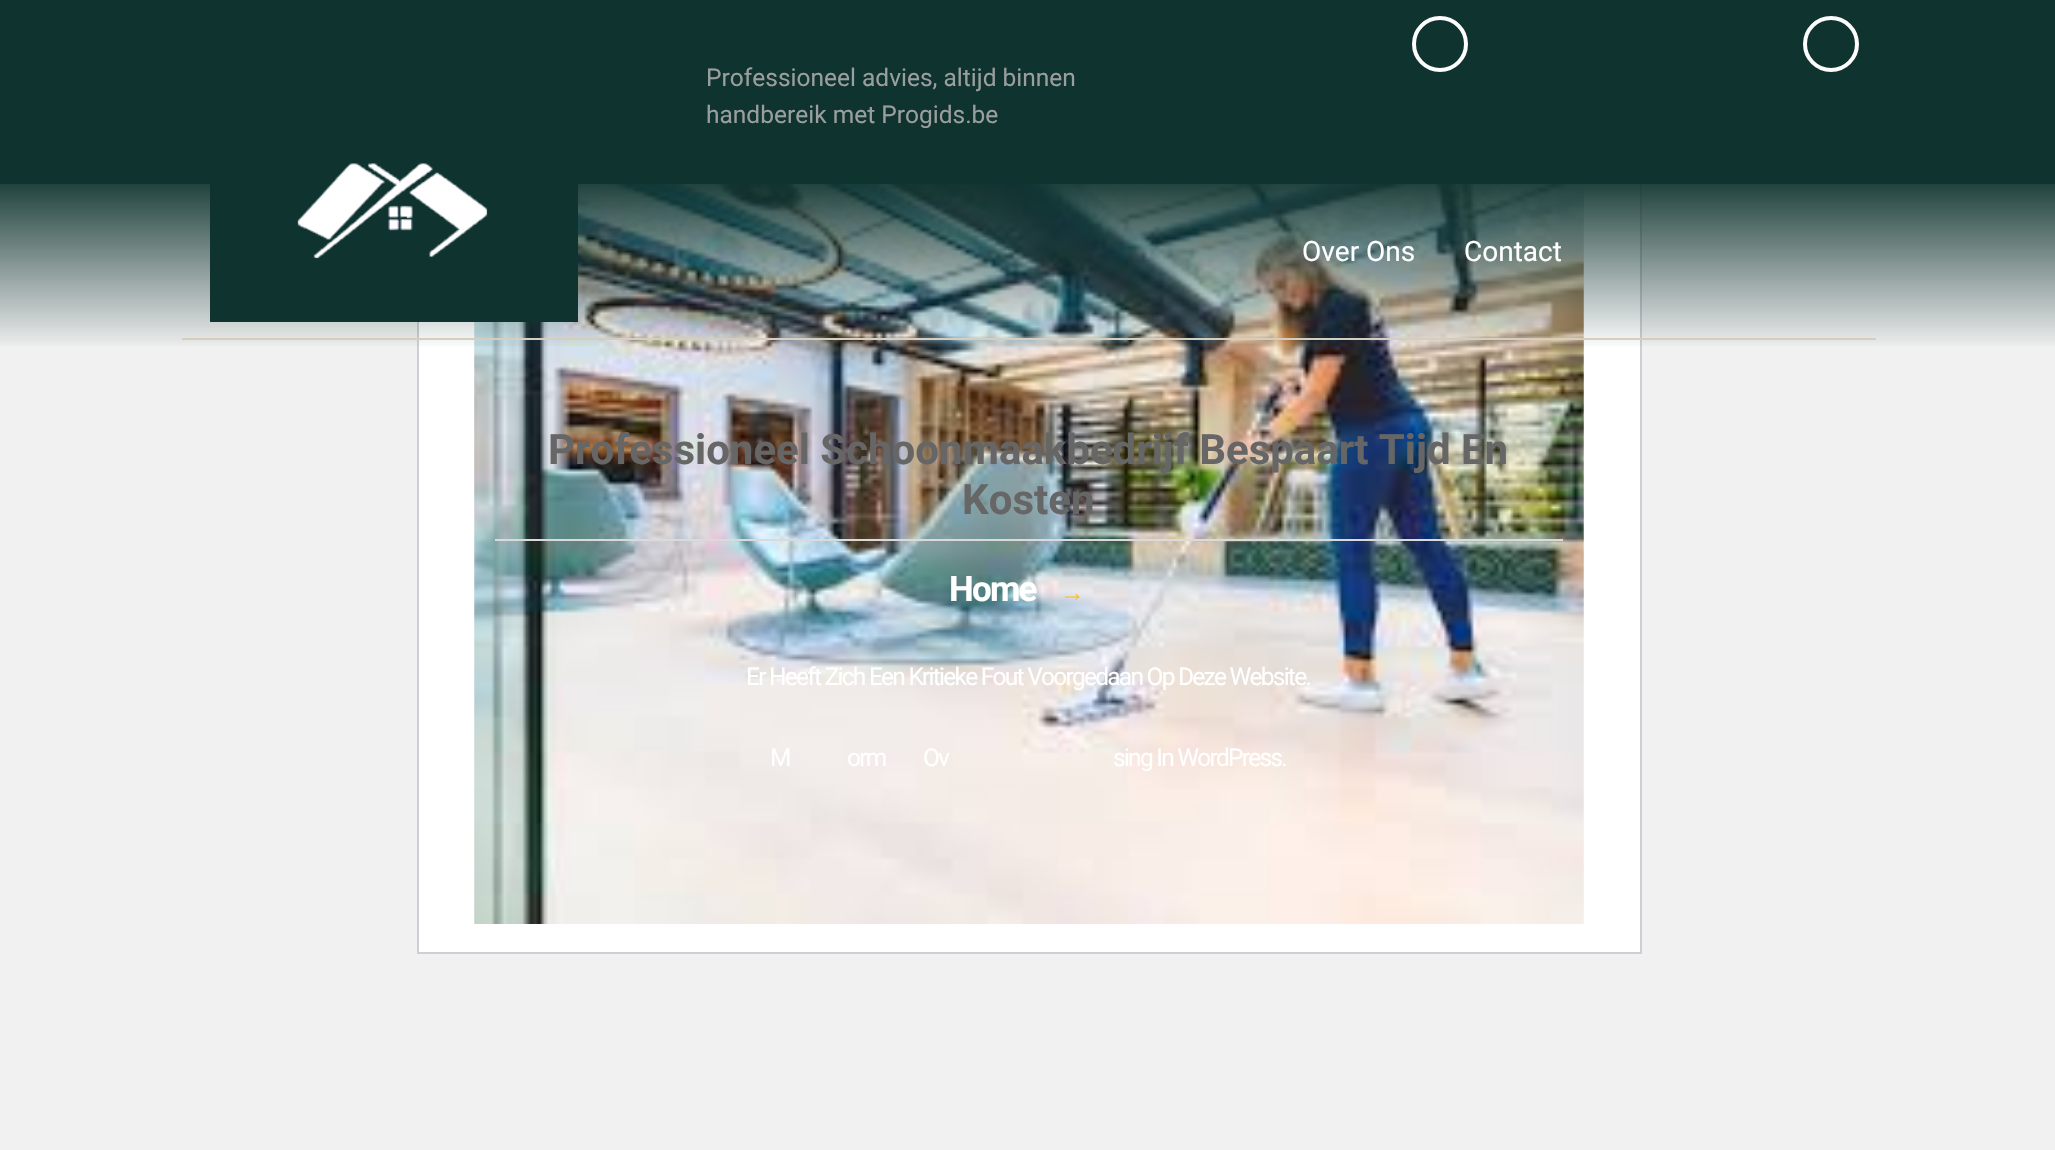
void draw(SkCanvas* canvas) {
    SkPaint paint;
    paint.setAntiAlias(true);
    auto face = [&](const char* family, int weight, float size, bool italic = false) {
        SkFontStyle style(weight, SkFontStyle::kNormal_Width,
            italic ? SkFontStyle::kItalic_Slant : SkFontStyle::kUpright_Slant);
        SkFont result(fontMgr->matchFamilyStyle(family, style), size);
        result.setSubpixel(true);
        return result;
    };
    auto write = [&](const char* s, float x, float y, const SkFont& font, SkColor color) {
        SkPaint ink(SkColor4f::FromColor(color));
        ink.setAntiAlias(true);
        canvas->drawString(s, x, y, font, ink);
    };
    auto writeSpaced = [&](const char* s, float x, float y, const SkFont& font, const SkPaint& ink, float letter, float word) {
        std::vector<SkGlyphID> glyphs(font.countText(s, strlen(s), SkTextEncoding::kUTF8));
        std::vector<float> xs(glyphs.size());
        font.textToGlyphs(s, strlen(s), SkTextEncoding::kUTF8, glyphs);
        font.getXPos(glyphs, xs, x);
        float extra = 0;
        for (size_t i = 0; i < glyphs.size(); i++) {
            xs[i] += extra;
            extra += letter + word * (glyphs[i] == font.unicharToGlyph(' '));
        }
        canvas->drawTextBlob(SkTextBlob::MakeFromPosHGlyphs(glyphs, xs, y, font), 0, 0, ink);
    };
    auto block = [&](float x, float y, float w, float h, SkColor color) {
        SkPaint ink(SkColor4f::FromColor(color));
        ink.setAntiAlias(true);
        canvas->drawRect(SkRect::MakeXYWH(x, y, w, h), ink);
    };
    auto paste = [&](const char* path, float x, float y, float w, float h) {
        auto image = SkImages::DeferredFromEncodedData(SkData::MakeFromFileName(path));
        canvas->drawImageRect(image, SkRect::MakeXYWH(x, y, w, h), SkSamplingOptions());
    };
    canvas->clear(SkColorSetRGB(241, 241, 241));
    block(419, 184, 1221, 768, SK_ColorWHITE);
    paint.setStyle(SkPaint::kStroke_Style);
    paint.setStrokeWidth(2);
    paint.setColor(SkColorSetRGB(204, 208, 212));
    canvas->drawRect(SkRect::MakeXYWH(418, 89, 1223, 864), paint);
    block(0, 0, 2055, 184, SkColorSetRGB(15, 51, 46));
    paint.setStrokeWidth(4);
    paint.setColor(SkColorSetRGB(253, 253, 253));
    canvas->drawCircle(1440, 44, 26, paint);
    canvas->drawCircle(1831, 44, 26, paint);
    auto kFont1 = face("Roboto", 400, 24.5f);
    write("Professioneel advies, altijd binnen", 706, 86, kFont1, SkColorSetRGB(154, 158, 158));
    write("handbereik met Progids.be", 706, 123, kFont1, SkColorSetRGB(154, 158, 158));
    paste("pic2.png", 474, 184, 1110, 740);
    paint.setStyle(SkPaint::kFill_Style);
    {
        const SkColor colors[] = {SkColorSetARGB(0, 15, 51, 46), SkColorSetARGB(235, 15, 51, 46)};
        const float stops[] = {0, 1};
        const SkPoint ends[] = {{1028, 350}, {1028, 184}};
        paint.setShader(SkGradientShader::MakeLinear(ends, colors, stops, 2, SkTileMode::kClamp));
        paint.setAlpha(255);
    }
    canvas->drawRect(SkRect::MakeXYWH(0, 184, 2055, 162), paint);
    block(182, 338, 1694, 2, SkColorSetRGB(213, 205, 190));
    block(210, 184, 368, 138, SkColorSetRGB(15, 51, 46));
    paste("pic1.png", 297, 163, 191, 96);
    auto kFont2 = face("Roboto", 400, 28);
    write("Over Ons", 1302, 261, kFont2, SK_ColorWHITE);
    write("Contact", 1464, 261, kFont2, SK_ColorWHITE);
    block(495, 539, 1068, 2, SkColorSetRGB(218, 218, 218));
    auto kFont3 = face("Roboto", 700, 42);
    write("Professioneel Schoonmaakbedrijf Bespaart Tijd En", 548, 464, kFont3, SkColorSetRGB(102, 102, 102));
    write("Kosten", 962, 514, kFont3, SkColorSetRGB(102, 102, 102));
    auto kFont4 = face("Roboto", 700, 35);
    paint.setShader(nullptr);
    paint.setColor(SK_ColorWHITE);
    writeSpaced("Home", 949, 601, kFont4, paint, -1.75f, 0);
    auto kFont5 = face("Liberation Sans", 700, 24.5f);
    paint.setColor(SkColorSetRGB(249, 193, 44));
    writeSpaced("→", 1060, 601, kFont5, paint, -1.75f, 0);
    paint.setColor(SK_ColorWHITE);
    writeSpaced("Er Heeft Zich Een Kritieke Fout Voorgedaan Op Deze Website.", 746, 685, kFont1, paint, -1.75f, 0);
    writeSpaced("M", 770, 766, kFont1, paint, -1.75f, 0);
    writeSpaced("orm", 847, 766, kFont1, paint, -1.75f, 0);
    writeSpaced("Ov", 923, 766, kFont1, paint, -1.75f, 0);
    writeSpaced("sing In WordPress.", 1113, 766, kFont1, paint, -1.75f, 0);
}
